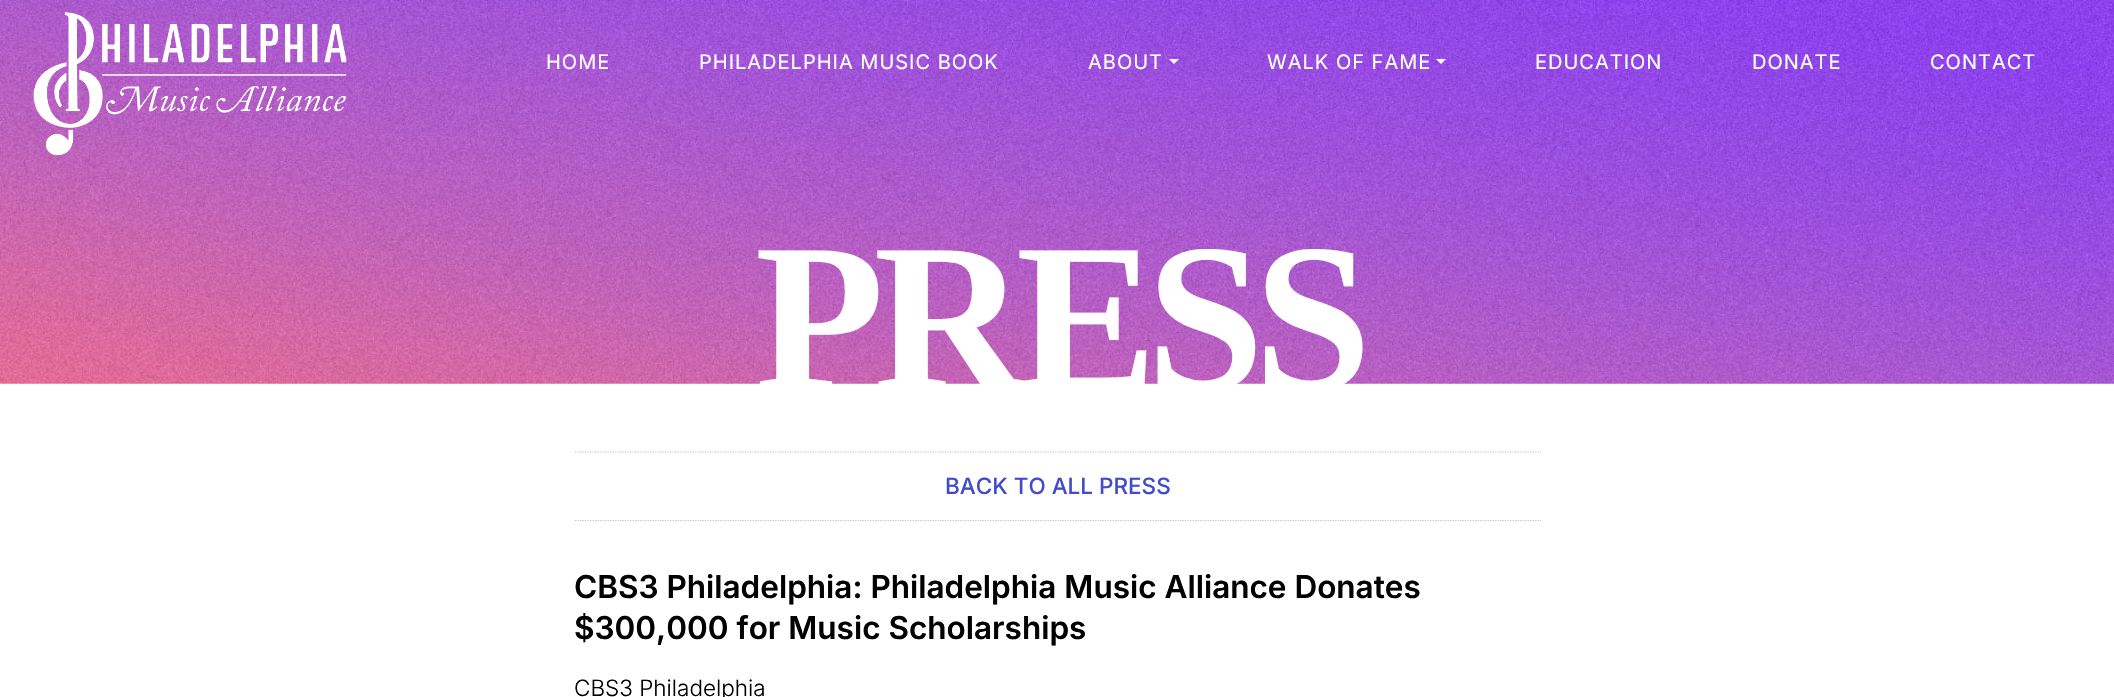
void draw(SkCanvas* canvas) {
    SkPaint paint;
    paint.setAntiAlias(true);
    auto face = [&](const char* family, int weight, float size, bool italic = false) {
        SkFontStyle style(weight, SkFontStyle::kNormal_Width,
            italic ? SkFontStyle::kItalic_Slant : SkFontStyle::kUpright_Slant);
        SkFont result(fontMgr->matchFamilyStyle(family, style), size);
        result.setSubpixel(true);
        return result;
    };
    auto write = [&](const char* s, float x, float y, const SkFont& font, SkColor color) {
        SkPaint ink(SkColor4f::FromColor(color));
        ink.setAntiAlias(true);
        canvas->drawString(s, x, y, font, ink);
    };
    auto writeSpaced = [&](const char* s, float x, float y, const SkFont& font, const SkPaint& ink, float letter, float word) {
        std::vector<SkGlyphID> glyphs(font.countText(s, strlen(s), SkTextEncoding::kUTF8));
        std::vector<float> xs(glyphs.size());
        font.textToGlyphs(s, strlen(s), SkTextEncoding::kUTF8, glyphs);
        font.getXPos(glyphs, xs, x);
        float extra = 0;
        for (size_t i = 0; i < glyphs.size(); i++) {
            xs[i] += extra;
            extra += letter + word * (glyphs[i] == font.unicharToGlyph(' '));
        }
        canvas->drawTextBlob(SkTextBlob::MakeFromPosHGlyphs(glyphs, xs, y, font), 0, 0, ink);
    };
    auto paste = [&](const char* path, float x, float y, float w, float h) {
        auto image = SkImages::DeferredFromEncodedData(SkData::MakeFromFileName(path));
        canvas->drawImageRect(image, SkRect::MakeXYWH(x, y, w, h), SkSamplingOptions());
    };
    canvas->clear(SK_ColorWHITE);
    paste("pic2.png", 0, 0, 2114, 384);
    paste("pic1.png", 33, 12, 314, 143);
    auto kFont1 = face("Inter", 400, 20);
    paint.setColor(SK_ColorWHITE);
    writeSpaced("HOME", 546, 69, kFont1, paint, 1, 0);
    writeSpaced("PHILADELPHIA MUSIC BOOK", 699, 69, kFont1, paint, 1, 0);
    writeSpaced("ABOUT", 1088, 69, kFont1, paint, 1, 0);
    canvas->drawPath(SkPathBuilder().moveTo(1169, 59).lineTo(1179, 59).lineTo(1174, 64).close().detach(), paint);
    writeSpaced("WALK OF FAME", 1267, 69, kFont1, paint, 1, 0);
    canvas->drawPath(SkPathBuilder().moveTo(1436, 59).lineTo(1446, 59).lineTo(1441, 64).close().detach(), paint);
    writeSpaced("EDUCATION", 1535, 69, kFont1, paint, 1, 0);
    writeSpaced("DONATE", 1752, 69, kFont1, paint, 1, 0);
    writeSpaced("CONTACT", 1930, 69, kFont1, paint, 1, 0);
    canvas->save();
    canvas->clipRect(SkRect::MakeXYWH(0, 0, 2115, 384));
    auto kFont2 = face("Liberation Serif", 700, 211.5f);
    writeSpaced("PRESS", 755, 389, kFont2, paint, -10.5f, 0);
    canvas->restore();
    paint.setStyle(SkPaint::kStroke_Style);
    paint.setStrokeWidth(1.2f);
    paint.setColor(SkColorSetRGB(192, 192, 192));
    paint.setPathEffect(SkDashPathEffect::Make({{1.25f, 1.25f}}, 0));
    canvas->drawPath(SkPathBuilder().moveTo(575, 452).lineTo(1541, 452).detach(), paint);
    paint.setPathEffect(nullptr);
    paint.setPathEffect(SkDashPathEffect::Make({{1.25f, 1.25f}}, 0));
    canvas->drawPath(SkPathBuilder().moveTo(575, 520.5f).lineTo(1541, 520.5f).detach(), paint);
    paint.setPathEffect(nullptr);
    auto kFont3 = face("Inter", 500, 22.5f);
    write("BACK TO ALL PRESS", 945, 494, kFont3, SkColorSetRGB(65, 75, 204));
    auto kFont4 = face("Inter", 600, 31.5f);
    write("CBS3 Philadelphia: Philadelphia Music Alliance Donates", 574, 598, kFont4, SK_ColorBLACK);
    write("$300,000 for Music Scholarships", 574, 639, kFont4, SK_ColorBLACK);
    auto kFont5 = face("Inter", 300, 22.5f);
    write("CBS3 Philadelphia", 574, 696, kFont5, SK_ColorBLACK);
}
